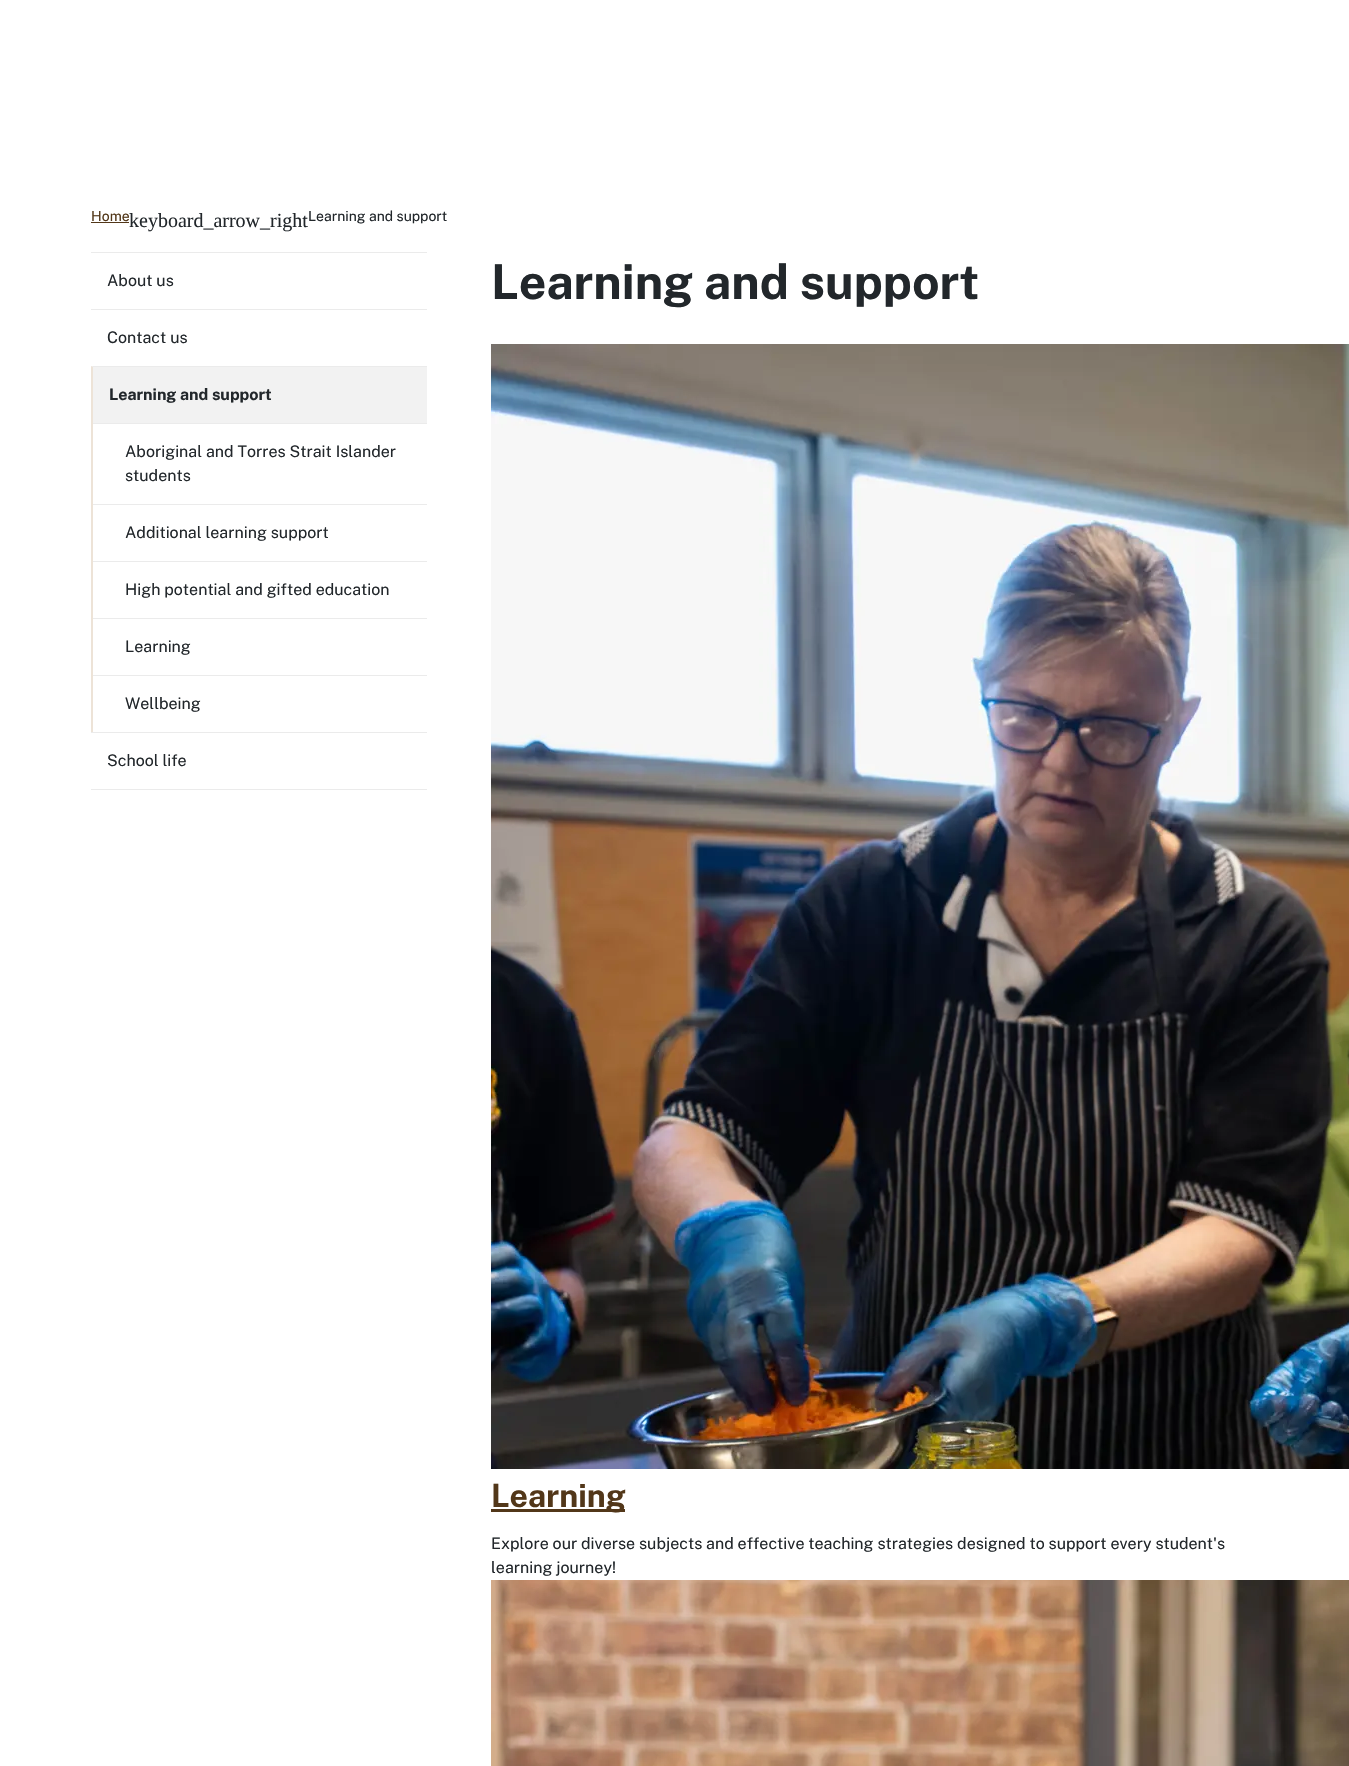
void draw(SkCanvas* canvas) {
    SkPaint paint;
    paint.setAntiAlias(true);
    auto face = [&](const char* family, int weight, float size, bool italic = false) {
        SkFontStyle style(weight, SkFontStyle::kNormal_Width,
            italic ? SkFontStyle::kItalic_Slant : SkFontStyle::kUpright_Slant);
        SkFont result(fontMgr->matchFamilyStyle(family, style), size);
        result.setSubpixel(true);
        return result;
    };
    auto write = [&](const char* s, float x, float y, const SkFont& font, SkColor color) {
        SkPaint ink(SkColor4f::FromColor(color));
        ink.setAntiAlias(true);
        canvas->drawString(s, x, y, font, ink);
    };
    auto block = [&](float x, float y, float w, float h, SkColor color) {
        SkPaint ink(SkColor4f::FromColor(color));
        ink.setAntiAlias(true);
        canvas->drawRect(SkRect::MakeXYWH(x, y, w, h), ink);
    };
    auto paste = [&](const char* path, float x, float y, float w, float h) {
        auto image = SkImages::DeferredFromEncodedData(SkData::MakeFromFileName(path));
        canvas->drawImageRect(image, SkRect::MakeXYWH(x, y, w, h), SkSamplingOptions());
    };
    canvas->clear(SK_ColorWHITE);
    auto kFont1 = face("Public Sans", 400, 14);
    write("Home", 91, 221, kFont1, SkColorSetRGB(82, 55, 25));
    block(91, 222, 38, 1, SkColorSetRGB(82, 55, 25));
    auto kFont2 = face("Liberation Serif", 400, 20);
    write("keyboard_arrow_right", 129, 227, kFont2, SkColorSetRGB(34, 39, 43));
    write("Learning and support", 308, 221, kFont1, SkColorSetRGB(34, 39, 43));
    block(91, 252, 336, 1, SkColorSetRGB(235, 235, 235));
    auto kFont3 = face("Public Sans", 400, 16);
    write("About us", 107, 286, kFont3, SkColorSetRGB(34, 39, 43));
    block(91, 309, 336, 1, SkColorSetRGB(235, 235, 235));
    write("Contact us", 107, 343, kFont3, SkColorSetRGB(34, 39, 43));
    paint.setColor(SkColorSetRGB(235, 235, 235));
    canvas->drawPath(SkPathBuilder().moveTo(91, 366).lineTo(427, 366).lineTo(427, 367).lineTo(93, 367).close().detach(), paint);
    paint.setColor(SkColorSetRGB(237, 227, 215));
    canvas->drawPath(SkPathBuilder().moveTo(91, 732).lineTo(91, 366).lineTo(93, 367).lineTo(93, 732).close().detach(), paint);
    block(93, 367, 334, 56, SkColorSetRGB(242, 242, 242));
    auto kFont4 = face("Public Sans", 700, 16);
    write("Learning and support", 109, 400, kFont4, SkColorSetRGB(34, 39, 43));
    block(93, 423, 334, 1, SkColorSetRGB(235, 235, 235));
    write("Aboriginal and Torres Strait Islander", 125, 457, kFont3, SkColorSetRGB(34, 39, 43));
    write("students", 125, 481, kFont3, SkColorSetRGB(34, 39, 43));
    block(93, 504, 334, 1, SkColorSetRGB(235, 235, 235));
    write("Additional learning support", 125, 538, kFont3, SkColorSetRGB(34, 39, 43));
    block(93, 561, 334, 1, SkColorSetRGB(235, 235, 235));
    write("High potential and gifted education", 125, 595, kFont3, SkColorSetRGB(34, 39, 43));
    block(93, 618, 334, 1, SkColorSetRGB(235, 235, 235));
    write("Learning", 125, 652, kFont3, SkColorSetRGB(34, 39, 43));
    block(93, 675, 334, 1, SkColorSetRGB(235, 235, 235));
    write("Wellbeing", 125, 709, kFont3, SkColorSetRGB(34, 39, 43));
    block(91, 732, 336, 1, SkColorSetRGB(235, 235, 235));
    write("School life", 107, 766, kFont3, SkColorSetRGB(34, 39, 43));
    block(91, 789, 336, 1, SkColorSetRGB(235, 235, 235));
    auto kFont5 = face("Public Sans", 700, 48);
    write("Learning and support", 491, 299, kFont5, SkColorSetRGB(34, 39, 43));
    paste("pic1.png", 491, 344, 858, 1125);
    block(491, 1509, 134, 3, SkColorSetRGB(82, 55, 25));
    auto kFont6 = face("Public Sans", 700, 32);
    write("Learning", 491, 1507, kFont6, SkColorSetRGB(82, 55, 25));
    write("Explore our diverse subjects and effective teaching strategies designed to support every student's", 491, 1549, kFont3, SkColorSetRGB(34, 39, 43));
    write("learning journey!", 491, 1573, kFont3, SkColorSetRGB(34, 39, 43));
    paste("pic2.png", 491, 1580, 858, 186);
}
